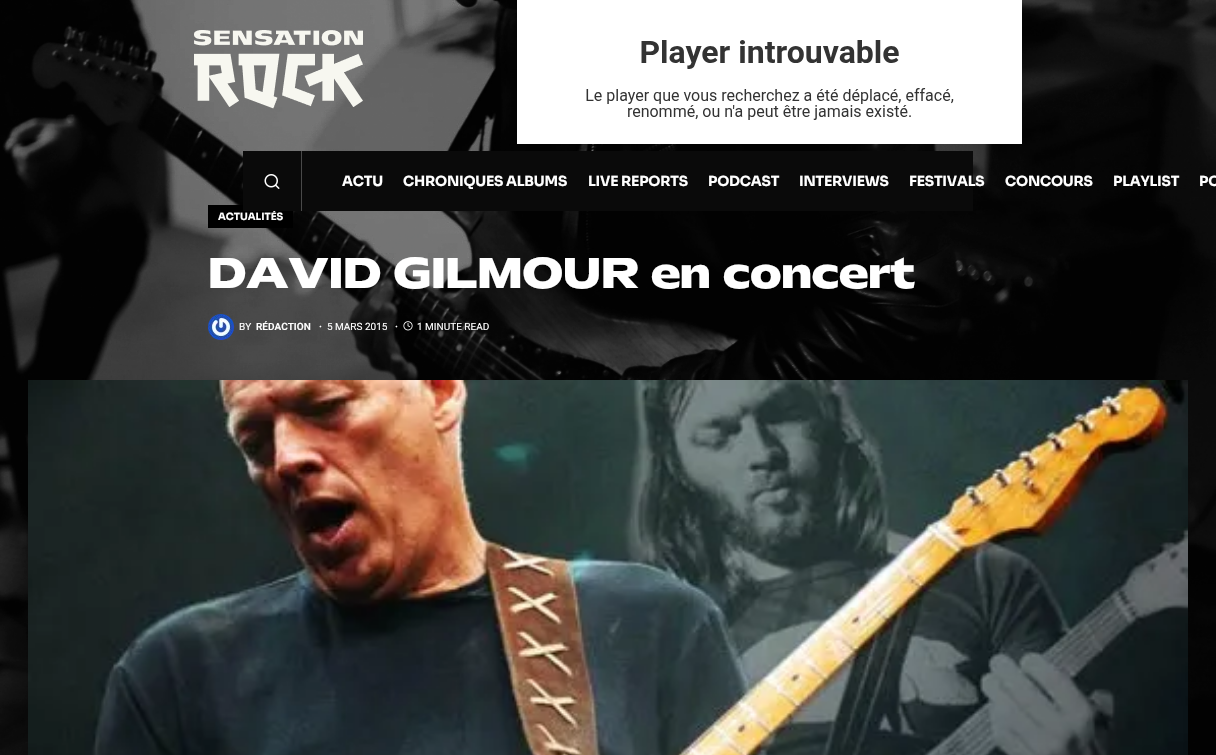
void draw(SkCanvas* canvas) {
    SkPaint paint;
    paint.setAntiAlias(true);
    auto face = [&](const char* family, int weight, float size, bool italic = false) {
        SkFontStyle style(weight, SkFontStyle::kNormal_Width,
            italic ? SkFontStyle::kItalic_Slant : SkFontStyle::kUpright_Slant);
        SkFont result(fontMgr->matchFamilyStyle(family, style), size);
        result.setSubpixel(true);
        return result;
    };
    auto write = [&](const char* s, float x, float y, const SkFont& font, SkColor color) {
        SkPaint ink(SkColor4f::FromColor(color));
        ink.setAntiAlias(true);
        canvas->drawString(s, x, y, font, ink);
    };
    auto writeSpaced = [&](const char* s, float x, float y, const SkFont& font, const SkPaint& ink, float letter, float word) {
        std::vector<SkGlyphID> glyphs(font.countText(s, strlen(s), SkTextEncoding::kUTF8));
        std::vector<float> xs(glyphs.size());
        font.textToGlyphs(s, strlen(s), SkTextEncoding::kUTF8, glyphs);
        font.getXPos(glyphs, xs, x);
        float extra = 0;
        for (size_t i = 0; i < glyphs.size(); i++) {
            xs[i] += extra;
            extra += letter + word * (glyphs[i] == font.unicharToGlyph(' '));
        }
        canvas->drawTextBlob(SkTextBlob::MakeFromPosHGlyphs(glyphs, xs, y, font), 0, 0, ink);
    };
    auto block = [&](float x, float y, float w, float h, SkColor color) {
        SkPaint ink(SkColor4f::FromColor(color));
        ink.setAntiAlias(true);
        canvas->drawRect(SkRect::MakeXYWH(x, y, w, h), ink);
    };
    auto paste = [&](const char* path, float x, float y, float w, float h) {
        auto image = SkImages::DeferredFromEncodedData(SkData::MakeFromFileName(path));
        canvas->drawImageRect(image, SkRect::MakeXYWH(x, y, w, h), SkSamplingOptions());
    };
    canvas->clear(SK_ColorWHITE);
    paste("pic1.png", 0, 0, 1216, 755);
    paste("pic2.png", 194, 30, 169, 79);
    paste("pic3.png", 517, 0, 505, 144);
    block(208, 205, 85, 23, SK_ColorBLACK);
    auto kFont1 = face("Sora", 700, 10);
    write("ACTUALITÉS", 218, 220, kFont1, SK_ColorWHITE);
    block(243, 151, 730, 60, SkColorSetRGB(10, 10, 10));
    paste("pic4.png", 264, 174, 16, 15);
    block(301, 151, 1, 60, SkColorSetRGB(73, 73, 73));
    auto kFont2 = face("Sora", 700, 14);
    paint.setColor(SK_ColorWHITE);
    writeSpaced("ACTU", 342, 186, kFont2, paint, -0.2f, 0);
    writeSpaced("CHRONIQUES ALBUMS", 403, 186, kFont2, paint, -0.2f, 0);
    writeSpaced("LIVE REPORTS", 588, 186, kFont2, paint, -0.2f, 0);
    writeSpaced("PODCAST", 708, 186, kFont2, paint, -0.2f, 0);
    writeSpaced("INTERVIEWS", 799, 186, kFont2, paint, -0.2f, 0);
    writeSpaced("FESTIVALS", 909, 186, kFont2, paint, -0.2f, 0);
    writeSpaced("CONCOURS", 1005, 186, kFont2, paint, -0.2f, 0);
    writeSpaced("PLAYLIST", 1113, 186, kFont2, paint, -0.2f, 0);
    writeSpaced("PO", 1199, 186, kFont2, paint, -0.2f, 0);
    auto kFont3 = face("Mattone", 700, 40);
    writeSpaced("DAVID GILMOUR en concert", 208, 288, kFont3, paint, -0.5f, 0);
    paste("pic5.png", 208, 314, 26, 26);
    auto kFont4 = face("Roboto", 400, 10);
    write("BY", 239, 330, kFont4, SK_ColorWHITE);
    auto kFont5 = face("Roboto", 600, 10);
    write("RÉDACTION", 256, 330, kFont5, SK_ColorWHITE);
    write("·", 319, 330, kFont5, SK_ColorWHITE);
    write("5 MARS 2015", 327, 330, kFont4, SK_ColorWHITE);
    write("·", 395, 330, kFont5, SK_ColorWHITE);
    paste("pic6.png", 403, 321, 10, 10);
    write("1 MINUTE READ", 417, 330, kFont4, SK_ColorWHITE);
    paste("pic7.png", 28, 380, 1160, 375);
}
